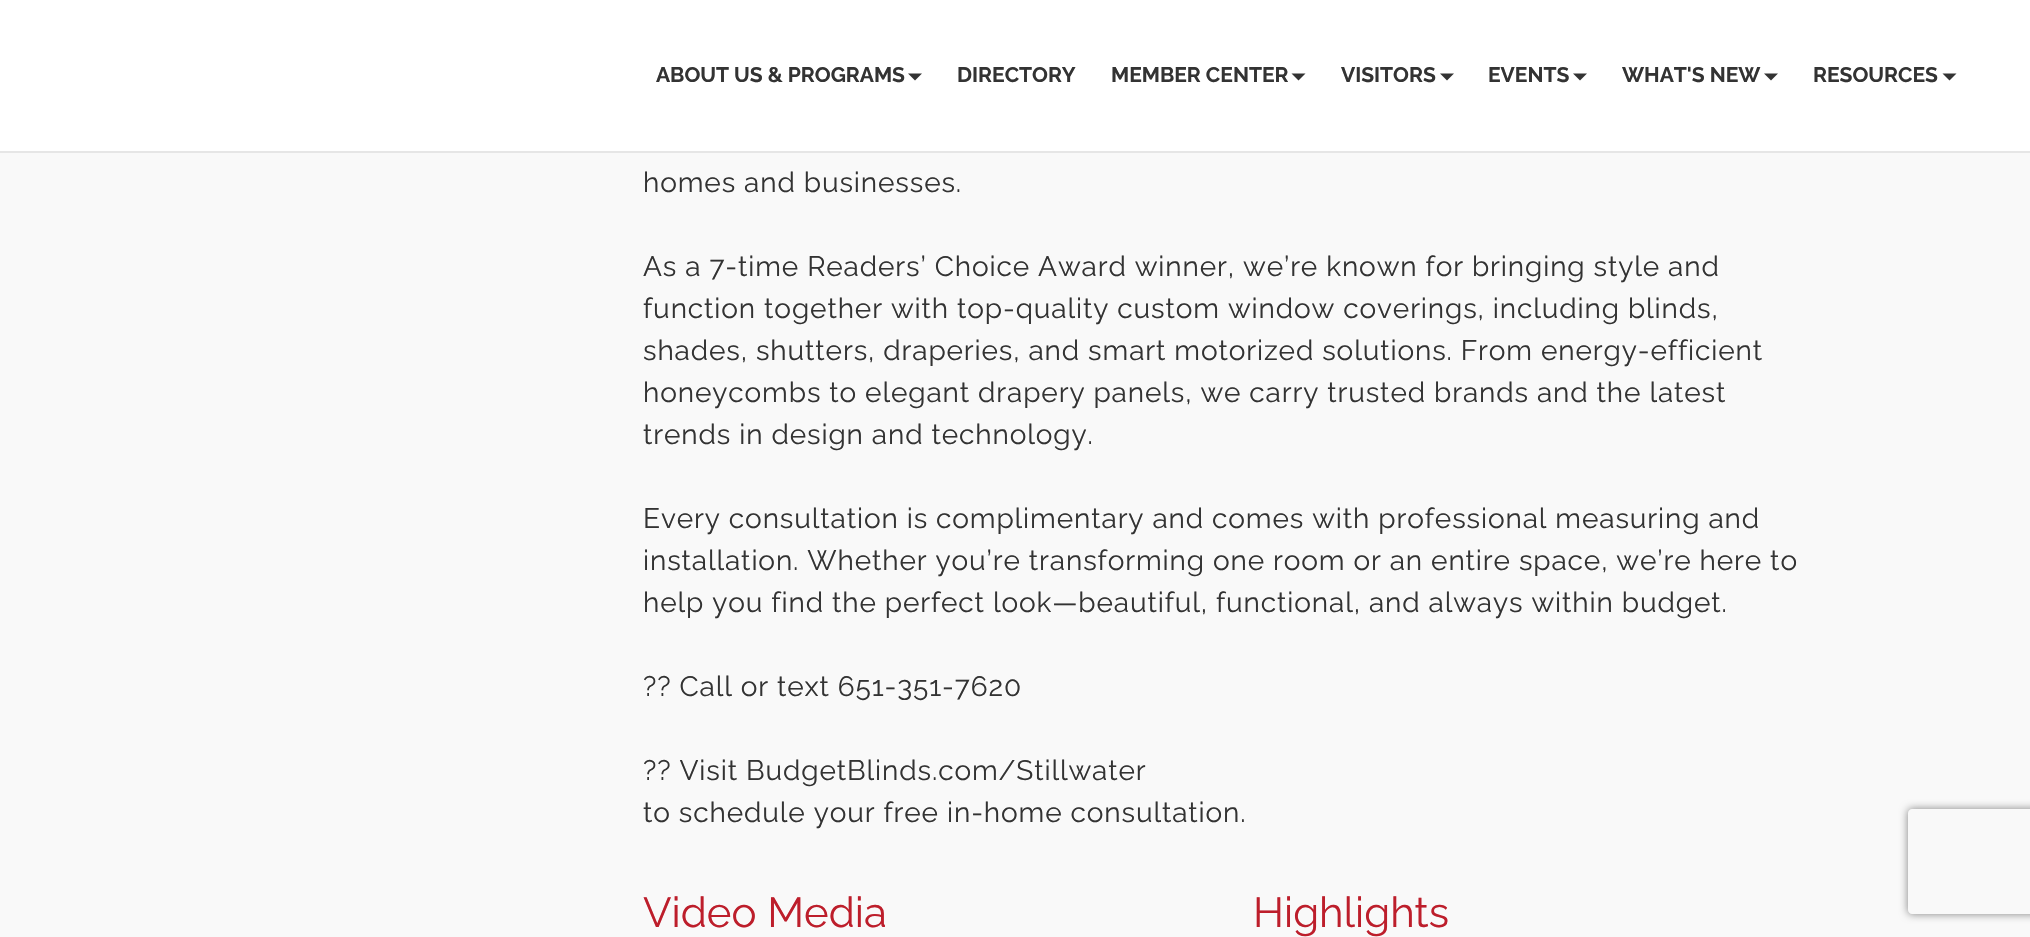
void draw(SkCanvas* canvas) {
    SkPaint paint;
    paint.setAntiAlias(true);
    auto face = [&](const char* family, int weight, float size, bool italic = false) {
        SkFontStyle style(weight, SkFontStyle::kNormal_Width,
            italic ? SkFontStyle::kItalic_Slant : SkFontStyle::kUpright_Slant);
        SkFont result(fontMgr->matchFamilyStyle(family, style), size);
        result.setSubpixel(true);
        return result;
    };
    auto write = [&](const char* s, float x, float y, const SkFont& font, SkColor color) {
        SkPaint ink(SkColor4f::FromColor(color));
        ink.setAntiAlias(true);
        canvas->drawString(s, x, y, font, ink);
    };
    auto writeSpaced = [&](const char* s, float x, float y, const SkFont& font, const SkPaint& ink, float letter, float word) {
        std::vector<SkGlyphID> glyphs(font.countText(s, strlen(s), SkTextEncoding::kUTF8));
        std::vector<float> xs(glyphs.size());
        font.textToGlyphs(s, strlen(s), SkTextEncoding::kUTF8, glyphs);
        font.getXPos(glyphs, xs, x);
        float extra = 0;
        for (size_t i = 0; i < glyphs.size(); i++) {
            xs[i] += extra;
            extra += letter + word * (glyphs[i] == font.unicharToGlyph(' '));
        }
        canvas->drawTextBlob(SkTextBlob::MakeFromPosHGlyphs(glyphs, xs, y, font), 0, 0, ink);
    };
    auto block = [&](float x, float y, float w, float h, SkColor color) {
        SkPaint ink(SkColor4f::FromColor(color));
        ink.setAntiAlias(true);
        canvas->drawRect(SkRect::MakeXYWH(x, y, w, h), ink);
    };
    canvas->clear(SkColorSetRGB(249, 249, 249));
    block(0, 0, 2030, 151, SK_ColorWHITE);
    block(0, 151, 2030, 2, SkColorSetRGB(230, 230, 230));
    auto kFont1 = face("Raleway", 700, 21);
    write("ABOUT US & PROGRAMS", 656, 82, kFont1, SkColorSetRGB(51, 51, 51));
    paint.setColor(SkColorSetRGB(51, 51, 51));
    canvas->drawPath(SkPathBuilder().moveTo(908, 73.5f).lineTo(922, 73.5f).lineTo(915, 80.5f).close().detach(), paint);
    write("DIRECTORY", 957, 82, kFont1, SkColorSetRGB(51, 51, 51));
    write("MEMBER CENTER", 1111, 82, kFont1, SkColorSetRGB(51, 51, 51));
    canvas->drawPath(SkPathBuilder().moveTo(1291.5f, 73.5f).lineTo(1305.5f, 73.5f).lineTo(1298.5f, 80.5f).close().detach(), paint);
    write("VISITORS", 1341, 82, kFont1, SkColorSetRGB(51, 51, 51));
    canvas->drawPath(SkPathBuilder().moveTo(1440, 73.5f).lineTo(1454, 73.5f).lineTo(1447, 80.5f).close().detach(), paint);
    write("EVENTS", 1488, 82, kFont1, SkColorSetRGB(51, 51, 51));
    canvas->drawPath(SkPathBuilder().moveTo(1573, 73.5f).lineTo(1587, 73.5f).lineTo(1580, 80.5f).close().detach(), paint);
    write("WHAT'S NEW", 1622, 82, kFont1, SkColorSetRGB(51, 51, 51));
    canvas->drawPath(SkPathBuilder().moveTo(1764, 73.5f).lineTo(1778, 73.5f).lineTo(1771, 80.5f).close().detach(), paint);
    write("RESOURCES", 1813, 82, kFont1, SkColorSetRGB(51, 51, 51));
    canvas->drawPath(SkPathBuilder().moveTo(1942.5f, 73.5f).lineTo(1956.5f, 73.5f).lineTo(1949.5f, 80.5f).close().detach(), paint);
    auto kFont2 = face("Raleway", 400, 28);
    writeSpaced("homes and businesses.", 643, 192, kFont2, paint, 0.88f, 0);
    writeSpaced("As a 7-time Readers’ Choice Award winner, we’re known for bringing style and", 643, 276, kFont2, paint, 0.88f, 0);
    writeSpaced("function together with top-quality custom window coverings, including blinds,", 643, 318, kFont2, paint, 0.88f, 0);
    writeSpaced("shades, shutters, draperies, and smart motorized solutions. From energy-efficient", 643, 360, kFont2, paint, 0.88f, 0);
    writeSpaced("honeycombs to elegant drapery panels, we carry trusted brands and the latest", 643, 402, kFont2, paint, 0.88f, 0);
    writeSpaced("trends in design and technology.", 643, 444, kFont2, paint, 0.88f, 0);
    writeSpaced("Every consultation is complimentary and comes with professional measuring and", 643, 528, kFont2, paint, 0.88f, 0);
    writeSpaced("installation. Whether you’re transforming one room or an entire space, we’re here to", 643, 570, kFont2, paint, 0.88f, 0);
    writeSpaced("help you find the perfect look—beautiful, functional, and always within budget.", 643, 612, kFont2, paint, 0.88f, 0);
    writeSpaced("?\077 Call or text 651-351-7620", 643, 696, kFont2, paint, 0.88f, 0);
    writeSpaced("?\077 Visit BudgetBlinds.com/Stillwater", 643, 780, kFont2, paint, 0.88f, 0);
    writeSpaced("to schedule your free in-home consultation.", 643, 822, kFont2, paint, 0.88f, 0);
    auto kFont3 = face("Raleway", 400, 42);
    write("Video Media", 643, 927, kFont3, SkColorSetRGB(189, 30, 43));
    write("Highlights", 1253, 927, kFont3, SkColorSetRGB(189, 30, 43));
    canvas->save();
    canvas->clipPath(SkPathBuilder(SkPathFillType::kEvenOdd).moveTo(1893, 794).lineTo(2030, 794).lineTo(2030, 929).lineTo(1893, 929).close().moveTo(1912, 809).lineTo(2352, 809).cubicTo(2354, 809, 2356, 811, 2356, 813).lineTo(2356, 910).cubicTo(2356, 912, 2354, 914, 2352, 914).lineTo(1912, 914).cubicTo(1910, 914, 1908, 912, 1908, 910).lineTo(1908, 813).cubicTo(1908, 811, 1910, 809, 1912, 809).close().detach(), true);
    paint.setColor(SkColorSetRGB(128, 128, 128));
    paint.setMaskFilter(SkMaskFilter::MakeBlur(kNormal_SkBlurStyle, 4.5f));
    canvas->drawRoundRect(SkRect::MakeXYWH(1908, 809, 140, 105), 4, 4, paint);
    paint.setMaskFilter(nullptr);
    canvas->restore();
}
